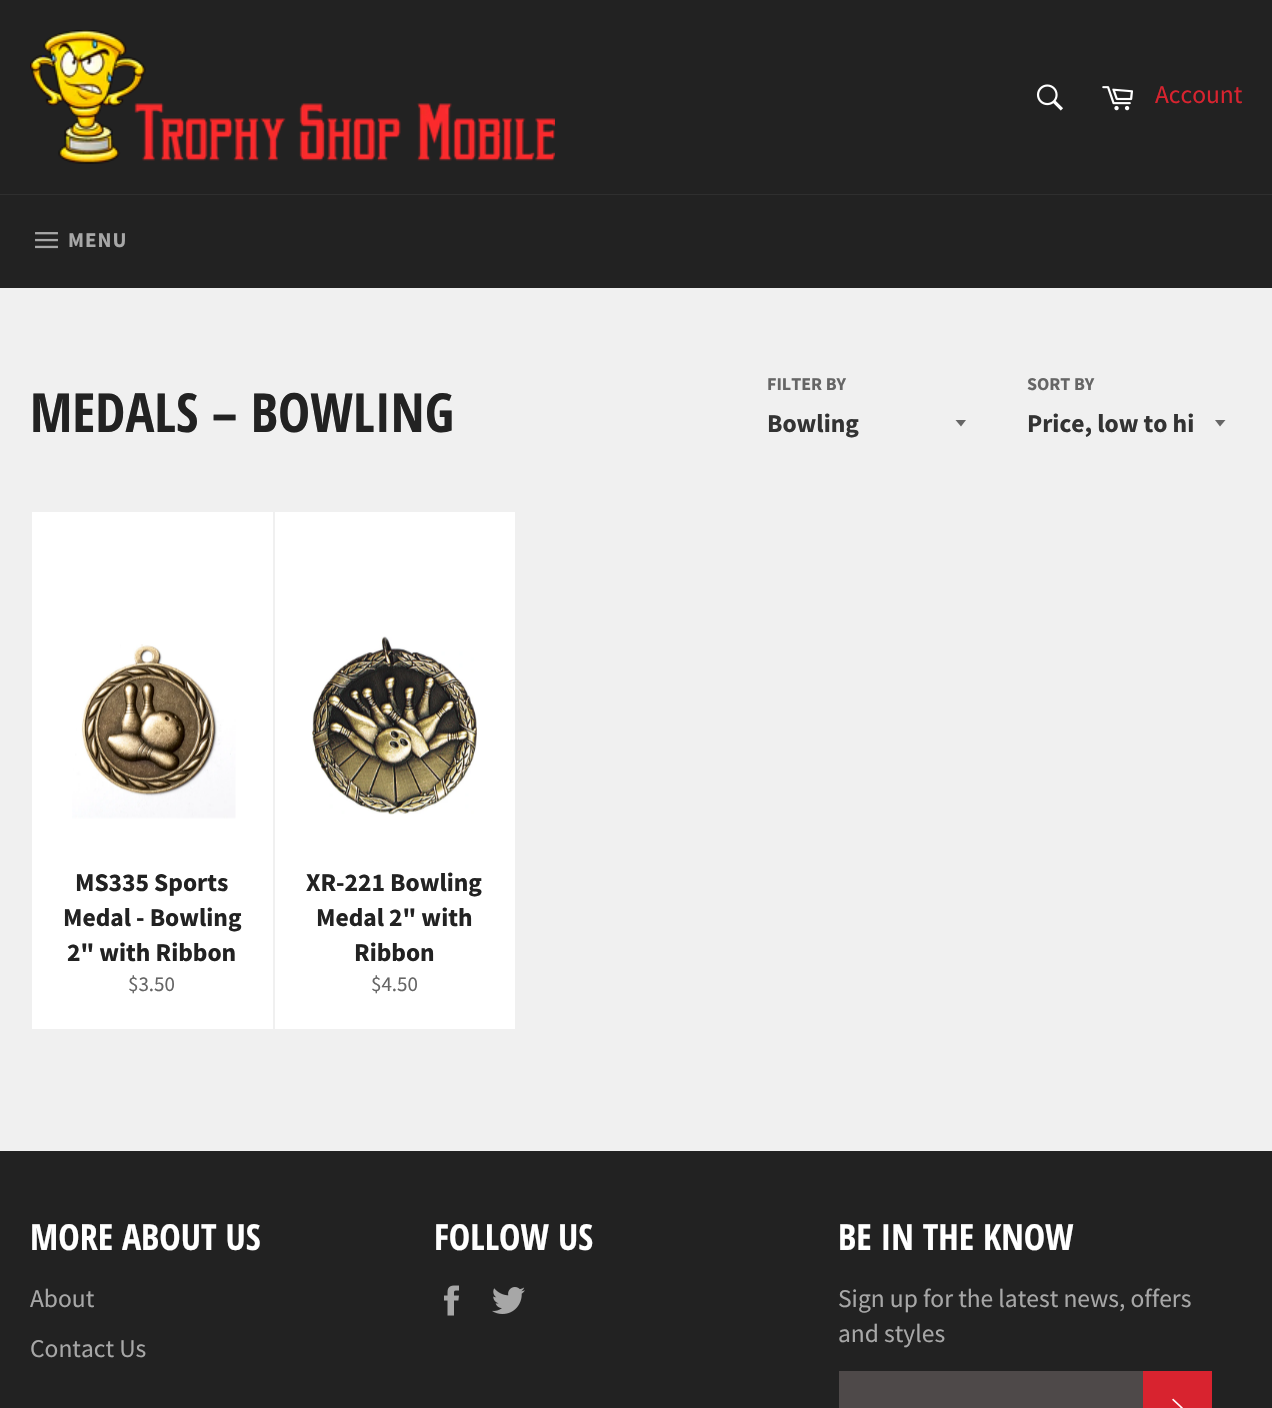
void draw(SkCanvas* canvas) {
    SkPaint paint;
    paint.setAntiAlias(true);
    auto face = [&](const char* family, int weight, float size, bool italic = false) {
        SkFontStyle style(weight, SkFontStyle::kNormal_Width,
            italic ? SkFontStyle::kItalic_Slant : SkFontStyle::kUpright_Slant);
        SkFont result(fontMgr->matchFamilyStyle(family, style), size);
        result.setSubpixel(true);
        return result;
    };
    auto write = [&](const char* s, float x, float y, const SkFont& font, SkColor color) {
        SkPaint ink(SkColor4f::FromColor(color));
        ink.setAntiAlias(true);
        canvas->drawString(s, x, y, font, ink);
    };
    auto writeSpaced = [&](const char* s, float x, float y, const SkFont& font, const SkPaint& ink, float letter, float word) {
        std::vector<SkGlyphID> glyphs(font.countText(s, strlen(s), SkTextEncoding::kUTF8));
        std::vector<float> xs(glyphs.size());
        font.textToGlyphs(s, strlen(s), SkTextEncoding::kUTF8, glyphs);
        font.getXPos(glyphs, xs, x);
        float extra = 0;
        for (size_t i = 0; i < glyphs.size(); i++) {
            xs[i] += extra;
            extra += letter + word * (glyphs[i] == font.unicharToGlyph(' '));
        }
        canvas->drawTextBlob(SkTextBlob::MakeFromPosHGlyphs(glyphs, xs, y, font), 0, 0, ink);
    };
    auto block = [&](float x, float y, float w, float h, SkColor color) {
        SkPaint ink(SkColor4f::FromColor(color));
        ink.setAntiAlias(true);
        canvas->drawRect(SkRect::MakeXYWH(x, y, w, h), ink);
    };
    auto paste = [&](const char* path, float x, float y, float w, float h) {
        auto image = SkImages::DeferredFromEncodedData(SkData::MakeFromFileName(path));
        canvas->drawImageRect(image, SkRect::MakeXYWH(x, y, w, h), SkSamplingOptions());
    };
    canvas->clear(SkColorSetRGB(240, 240, 240));
    block(0, 0, 1272, 194, SkColorSetRGB(34, 34, 34));
    paste("pic1.png", 30, 30, 525, 134);
    paste("pic2.png", 1036, 84, 27, 27);
    paste("pic3.png", 1102, 86, 31, 25);
    auto kFont1 = face("Source Sans Pro", 400, 25.5f);
    write("Account", 1155, 103, kFont1, SkColorSetRGB(216, 35, 47));
    block(0, 194, 1272, 1, SkColorSetRGB(47, 47, 47));
    block(0, 195, 1272, 93, SkColorSetRGB(34, 34, 34));
    paste("pic4.png", 35, 232, 23, 17);
    auto kFont2 = face("Source Sans Pro", 700, 21);
    paint.setColor(SkColorSetRGB(167, 167, 167));
    writeSpaced("MENU", 68, 247, kFont2, paint, 1, 0);
    auto kFont3 = face("Open Sans Condensed", 700, 54);
    write("MEDALS – BOWLING", 30, 432, kFont3, SkColorSetRGB(34, 34, 34));
    auto kFont4 = face("Source Sans Pro", 700, 18);
    write("FILTER BY", 767, 390, kFont4, SkColorSetRGB(102, 102, 102));
    paint.setColor(SkColorSetRGB(102, 102, 102));
    canvas->drawPath(SkPathBuilder().moveTo(955.5f, 420).lineTo(961, 426.5f).lineTo(966, 420).close().detach(), paint);
    auto kFont5 = face("Source Sans Pro", 700, 25.5f);
    write("Bowling", 767, 432, kFont5, SkColorSetRGB(51, 51, 51));
    write("SORT BY", 1027, 390, kFont4, SkColorSetRGB(102, 102, 102));
    canvas->drawPath(SkPathBuilder().moveTo(1215, 420).lineTo(1220, 426.5f).lineTo(1225.5f, 420).close().detach(), paint);
    write("Price, low to hi", 1027, 432, kFont5, SkColorSetRGB(51, 51, 51));
    block(32, 512, 241, 517, SK_ColorWHITE);
    paste("pic5.png", 72, 644, 164, 175);
    write("MS335 Sports", 75, 891, kFont5, SkColorSetRGB(34, 34, 34));
    write("Medal - Bowling", 63, 926, kFont5, SkColorSetRGB(34, 34, 34));
    write("2\" with Ribbon", 67, 961, kFont5, SkColorSetRGB(34, 34, 34));
    auto kFont6 = face("Source Sans Pro", 400, 21);
    write("$3.50", 128, 991, kFont6, SkColorSetRGB(102, 102, 102));
    block(275, 512, 240, 517, SK_ColorWHITE);
    paste("pic6.png", 312, 636, 165, 179);
    write("XR-221 Bowling", 306, 891, kFont5, SkColorSetRGB(34, 34, 34));
    write("Medal 2\" with", 316, 926, kFont5, SkColorSetRGB(34, 34, 34));
    write("Ribbon", 354, 961, kFont5, SkColorSetRGB(34, 34, 34));
    write("$4.50", 371, 991, kFont6, SkColorSetRGB(102, 102, 102));
    block(0, 1151, 1272, 257, SkColorSetRGB(34, 34, 34));
    auto kFont7 = face("Open Sans Condensed", 700, 36);
    write("MORE ABOUT US", 30, 1250, kFont7, SK_ColorWHITE);
    write("About", 30, 1307, kFont1, SkColorSetRGB(167, 167, 167));
    write("Contact Us", 30, 1357, kFont1, SkColorSetRGB(167, 167, 167));
    write("FOLLOW US", 434, 1250, kFont7, SK_ColorWHITE);
    paste("pic7.png", 444, 1285, 15, 31);
    paste("pic8.png", 492, 1287, 33, 27);
    write("BE IN THE KNOW", 838, 1250, kFont7, SK_ColorWHITE);
    write("Sign up for the latest news, offers", 838, 1307, kFont1, SkColorSetRGB(167, 167, 167));
    write("and styles", 838, 1342, kFont1, SkColorSetRGB(167, 167, 167));
    block(839, 1371, 304, 37, SkColorSetRGB(78, 73, 73));
    block(1143, 1371, 69, 37, SkColorSetRGB(216, 35, 47));
    paste("pic9.png", 1172, 1398, 11, 10);
}
